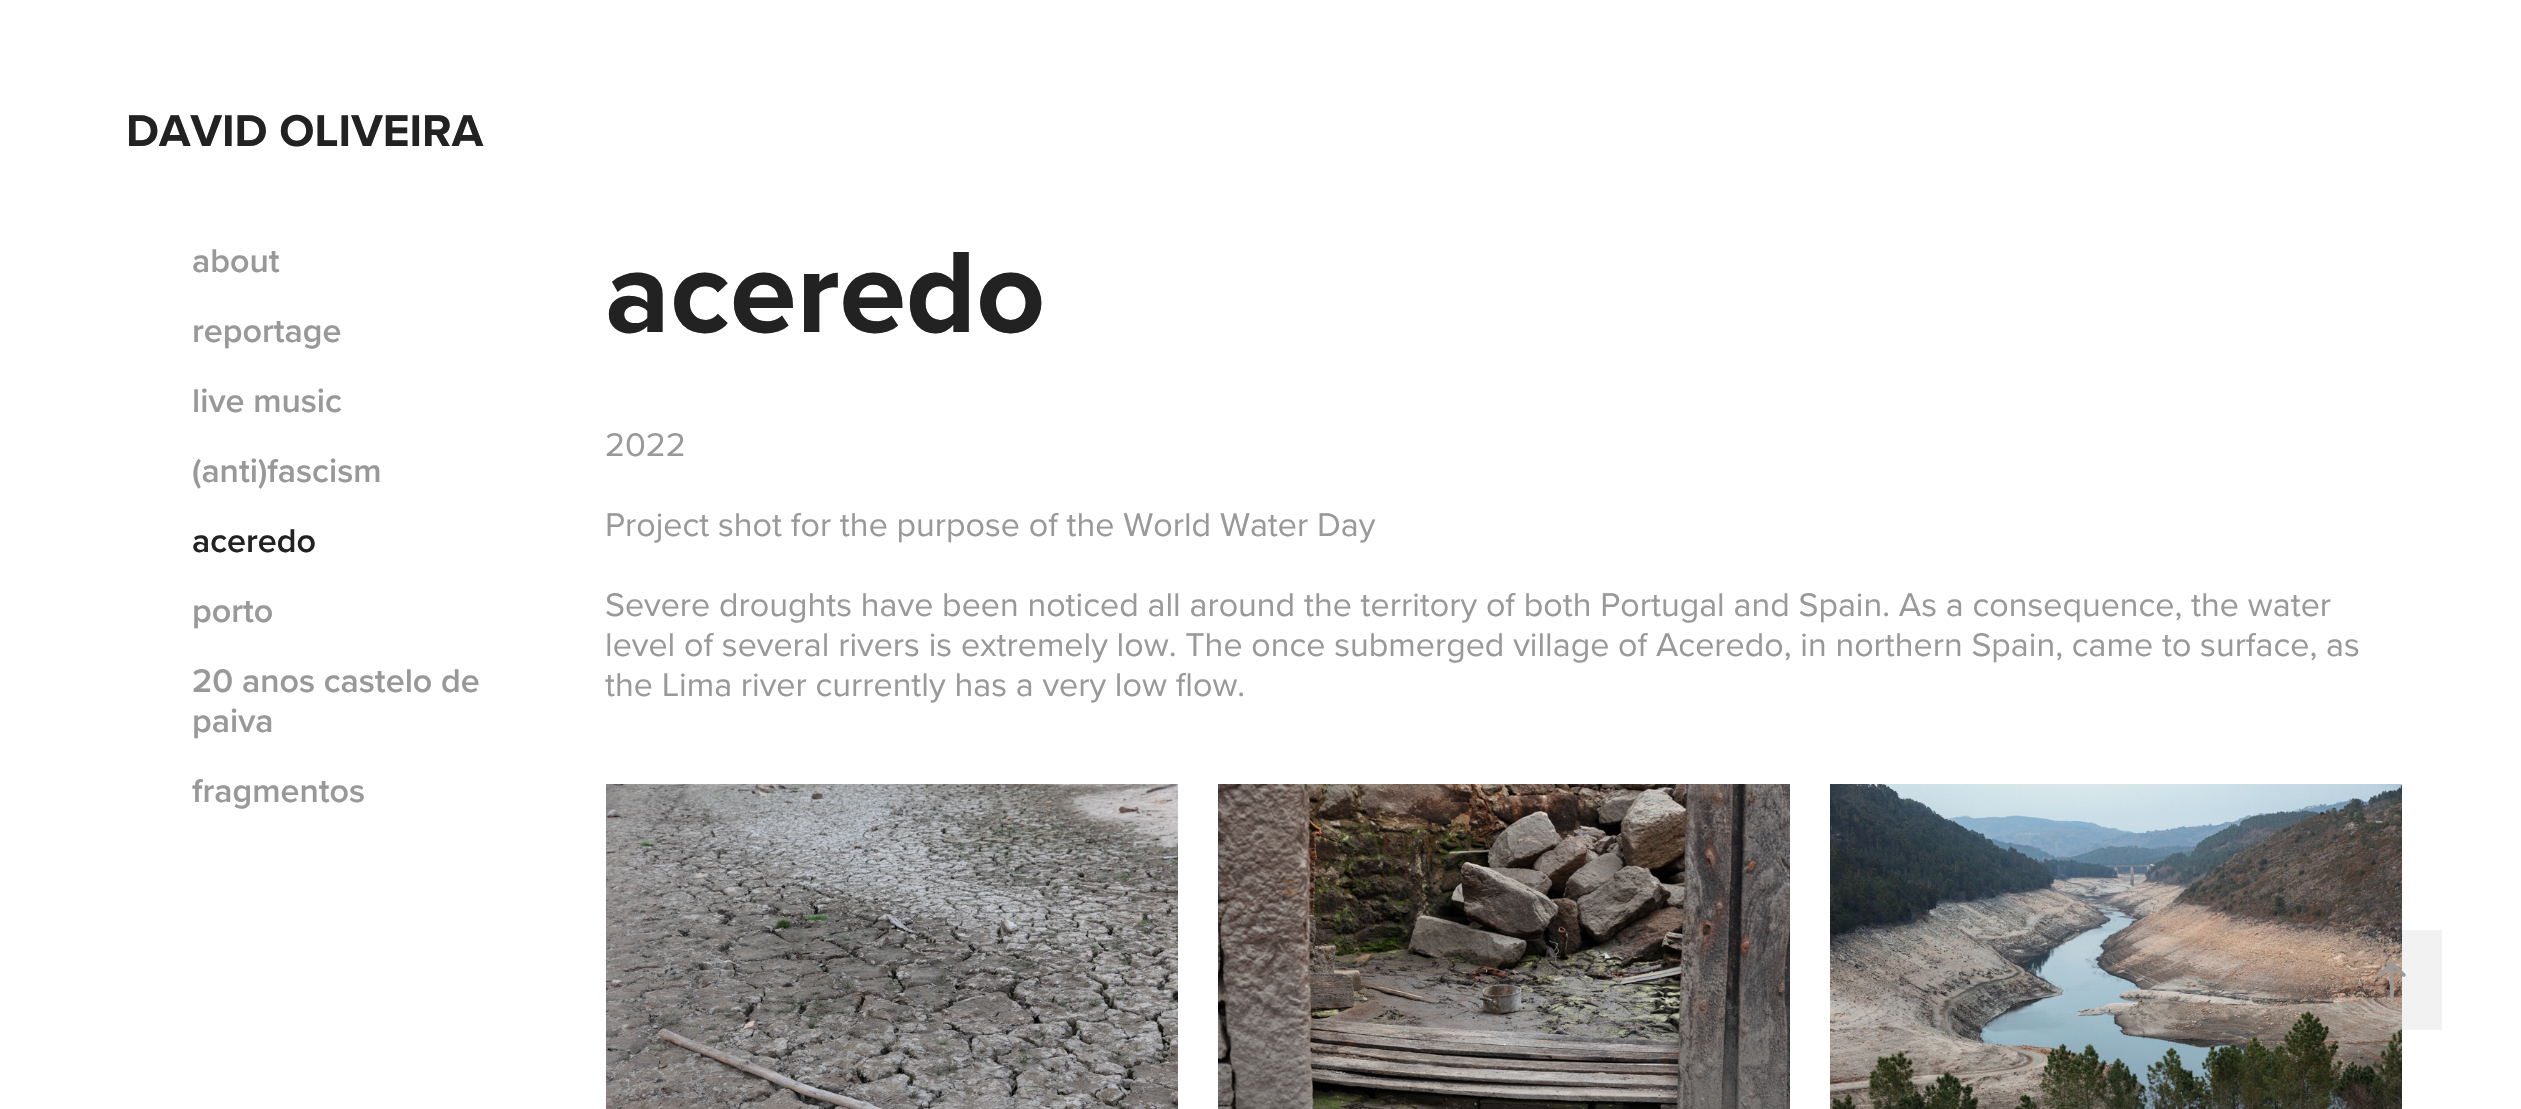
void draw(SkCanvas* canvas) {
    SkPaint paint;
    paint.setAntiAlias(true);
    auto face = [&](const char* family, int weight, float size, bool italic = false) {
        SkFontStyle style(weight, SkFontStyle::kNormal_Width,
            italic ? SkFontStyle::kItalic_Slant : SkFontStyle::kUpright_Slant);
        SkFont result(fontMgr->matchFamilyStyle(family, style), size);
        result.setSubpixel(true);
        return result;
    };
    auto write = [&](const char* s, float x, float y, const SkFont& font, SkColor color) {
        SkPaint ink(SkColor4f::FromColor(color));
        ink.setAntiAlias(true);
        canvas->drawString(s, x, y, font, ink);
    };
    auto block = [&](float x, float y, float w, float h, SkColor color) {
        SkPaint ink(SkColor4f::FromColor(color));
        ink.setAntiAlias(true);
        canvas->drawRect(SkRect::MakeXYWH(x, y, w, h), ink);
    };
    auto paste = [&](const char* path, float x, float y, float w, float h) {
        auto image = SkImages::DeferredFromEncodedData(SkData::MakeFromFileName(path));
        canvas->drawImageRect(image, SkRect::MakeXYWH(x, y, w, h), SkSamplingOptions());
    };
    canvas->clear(SK_ColorWHITE);
    auto kFont1 = face("Proxima Nova", 700, 46);
    write("DAVID OLIVEIRA", 126, 146, kFont1, SkColorSetRGB(34, 34, 34));
    auto kFont2 = face("Proxima Nova", 600, 34);
    write("about", 192, 272, kFont2, SkColorSetRGB(153, 153, 153));
    write("reportage", 192, 342, kFont2, SkColorSetRGB(153, 153, 153));
    write("live music", 192, 412, kFont2, SkColorSetRGB(153, 153, 153));
    write("(anti)fascism", 192, 482, kFont2, SkColorSetRGB(153, 153, 153));
    write("aceredo", 192, 552, kFont2, SkColorSetRGB(34, 34, 34));
    write("porto", 192, 622, kFont2, SkColorSetRGB(153, 153, 153));
    write("20 anos castelo de", 192, 692, kFont2, SkColorSetRGB(153, 153, 153));
    write("paiva", 192, 732, kFont2, SkColorSetRGB(153, 153, 153));
    write("fragmentos", 192, 802, kFont2, SkColorSetRGB(153, 153, 153));
    auto kFont3 = face("Proxima Nova", 700, 120);
    write("aceredo", 605, 332, kFont3, SkColorSetRGB(34, 34, 34));
    auto kFont4 = face("Proxima Nova", 400, 34);
    write("2022", 605, 456, kFont4, SkColorSetRGB(153, 153, 153));
    write("Project shot for the purpose of the World Water Day", 605, 536, kFont4, SkColorSetRGB(153, 153, 153));
    write("Severe droughts have been noticed all around the territory of both Portugal and Spain. As a consequence, the water", 605, 616, kFont4, SkColorSetRGB(153, 153, 153));
    write("level of several rivers is extremely low. The once submerged village of Aceredo, in northern Spain, came to surface, as", 605, 656, kFont4, SkColorSetRGB(153, 153, 153));
    write("the Lima river currently has a very low flow.", 605, 696, kFont4, SkColorSetRGB(153, 153, 153));
    paste("pic1.png", 606, 784, 572, 325);
    paste("pic2.png", 1218, 784, 572, 325);
    paste("pic3.png", 1830, 784, 572, 325);
    block(2342, 930, 100, 100, SkColorSetARGB(13, 0, 0, 0));
    paste("pic4.png", 2378, 961, 28, 38);
}
